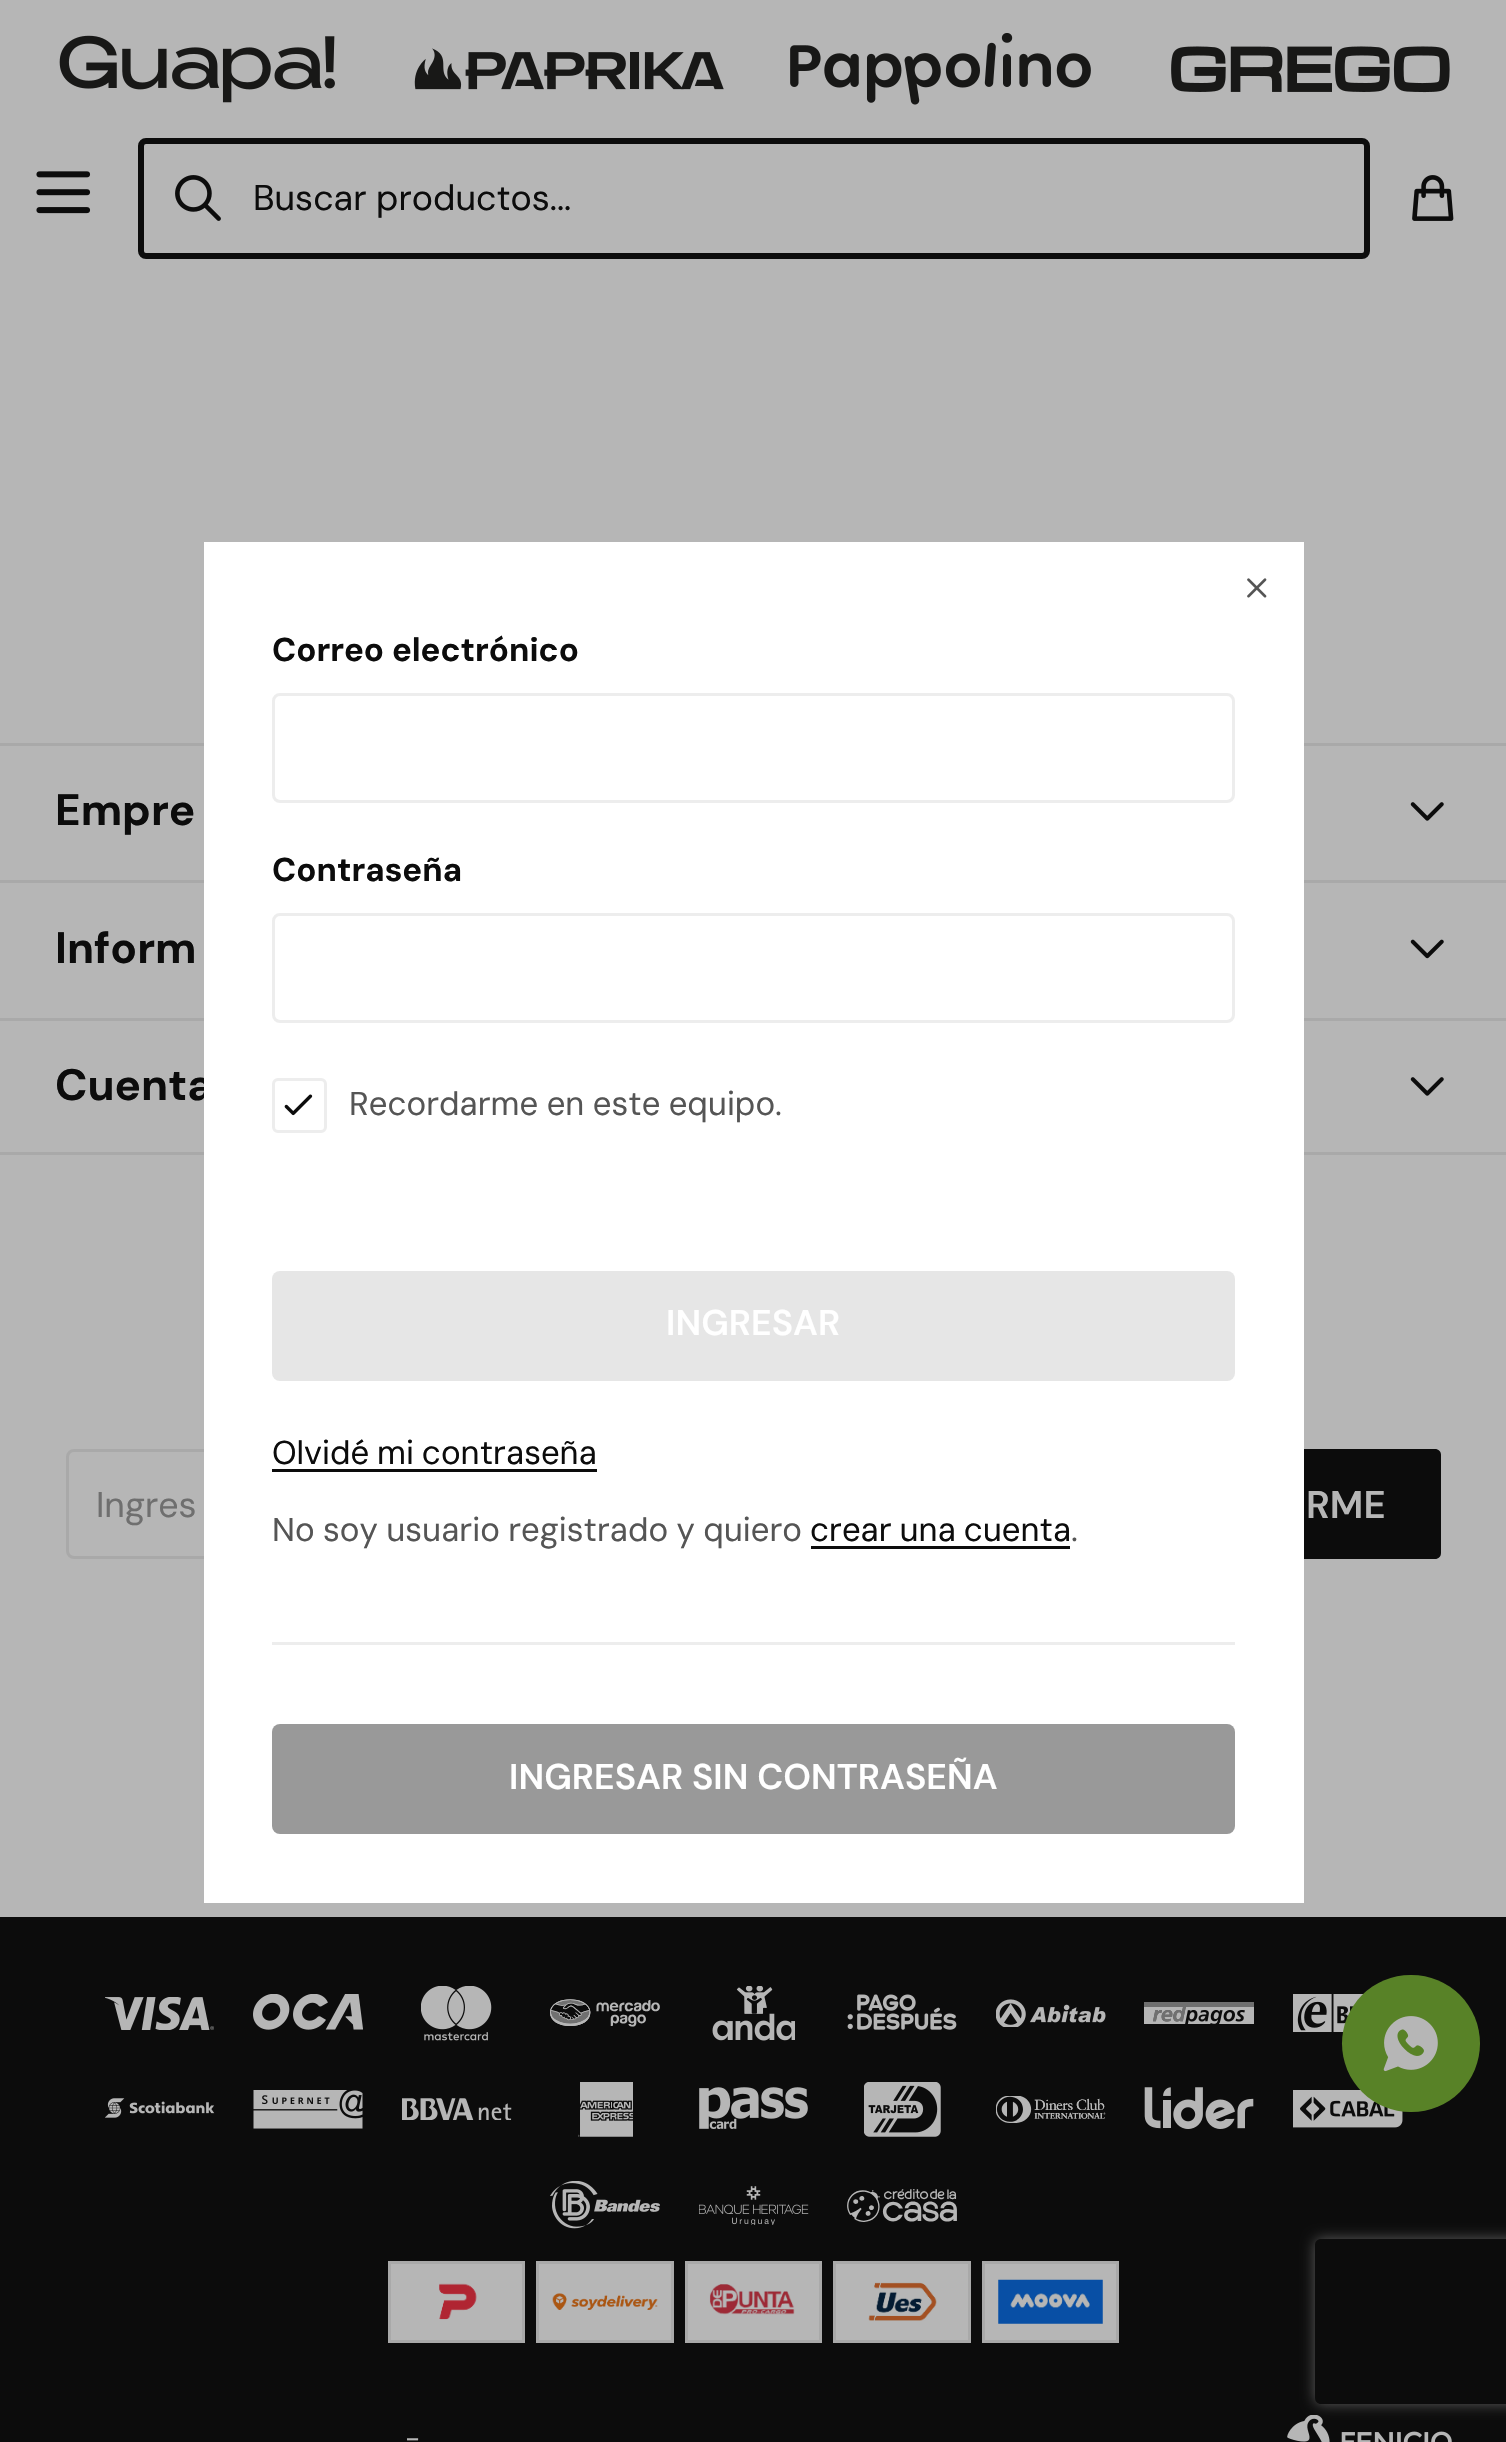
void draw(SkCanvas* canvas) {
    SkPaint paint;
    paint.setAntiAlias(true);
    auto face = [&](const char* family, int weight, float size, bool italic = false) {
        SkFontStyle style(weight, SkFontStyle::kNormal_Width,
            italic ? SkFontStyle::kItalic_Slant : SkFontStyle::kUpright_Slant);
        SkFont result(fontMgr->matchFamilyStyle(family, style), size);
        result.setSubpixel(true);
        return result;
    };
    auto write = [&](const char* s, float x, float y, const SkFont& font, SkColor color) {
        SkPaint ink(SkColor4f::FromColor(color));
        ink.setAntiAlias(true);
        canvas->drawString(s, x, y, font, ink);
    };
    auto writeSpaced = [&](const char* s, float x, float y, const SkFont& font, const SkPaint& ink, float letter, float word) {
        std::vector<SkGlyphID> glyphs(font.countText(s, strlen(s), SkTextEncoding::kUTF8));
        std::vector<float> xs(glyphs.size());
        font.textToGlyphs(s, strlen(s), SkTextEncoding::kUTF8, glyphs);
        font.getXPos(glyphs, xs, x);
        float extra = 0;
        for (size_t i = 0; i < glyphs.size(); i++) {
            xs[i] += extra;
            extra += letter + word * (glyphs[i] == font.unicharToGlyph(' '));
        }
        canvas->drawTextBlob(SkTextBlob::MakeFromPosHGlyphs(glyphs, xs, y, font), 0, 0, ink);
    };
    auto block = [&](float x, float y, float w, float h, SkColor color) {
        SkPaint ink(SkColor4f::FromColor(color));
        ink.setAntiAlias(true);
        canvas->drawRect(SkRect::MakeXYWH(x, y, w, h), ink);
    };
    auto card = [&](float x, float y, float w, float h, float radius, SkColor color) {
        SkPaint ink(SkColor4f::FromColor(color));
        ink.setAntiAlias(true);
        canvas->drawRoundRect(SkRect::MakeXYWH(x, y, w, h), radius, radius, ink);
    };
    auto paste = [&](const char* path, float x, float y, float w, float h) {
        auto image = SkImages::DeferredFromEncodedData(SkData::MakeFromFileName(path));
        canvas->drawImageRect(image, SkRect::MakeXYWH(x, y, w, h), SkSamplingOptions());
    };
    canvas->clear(SkColorSetRGB(182, 182, 182));
    paste("pic1.png", 59, 35, 276, 68);
    paste("pic2.png", 414, 48, 310, 42);
    paste("pic3.png", 790, 33, 301, 72);
    paste("pic4.png", 1171, 46, 279, 47);
    paste("pic5.png", 36, 171, 55, 43);
    paint.setStyle(SkPaint::kStroke_Style);
    paint.setStrokeWidth(6);
    paint.setColor(SkColorSetRGB(12, 12, 12));
    canvas->drawRoundRect(SkRect::MakeXYWH(141, 141, 1226, 115), 5, 5, paint);
    paste("pic6.png", 175, 175, 46, 46);
    auto kFont1 = face("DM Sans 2", 400, 35.75f);
    write("Buscar productos...", 253, 210, kFont1, SkColorSetRGB(12, 12, 12));
    paste("pic7.png", 1412, 175, 42, 46);
    block(0, 743, 1506, 3, SkColorSetRGB(169, 169, 169));
    auto kFont2 = face("DM Sans", 700, 44);
    write("Empre", 55, 825, kFont2, SkColorSetRGB(12, 12, 12));
    paste("pic8.png", 1410, 802, 34, 19);
    block(0, 880, 1506, 3, SkColorSetRGB(169, 169, 169));
    write("Inform", 55, 963, kFont2, SkColorSetRGB(12, 12, 12));
    paste("pic9.png", 1410, 939, 34, 20);
    block(0, 1018, 1506, 3, SkColorSetRGB(169, 169, 169));
    write("Cuenta", 55, 1100, kFont2, SkColorSetRGB(12, 12, 12));
    paste("pic8.png", 1410, 1077, 34, 19);
    block(0, 1152, 1506, 3, SkColorSetRGB(169, 169, 169));
    paint.setStrokeWidth(3);
    paint.setColor(SkColorSetRGB(169, 169, 169));
    canvas->drawRoundRect(SkRect::MakeXYWH(67.5f, 1450.5f, 1372, 107), 6.5f, 6.5f, paint);
    write("Ingres", 96, 1517, kFont1, SkColorSetRGB(111, 111, 111));
    paint.setStyle(SkPaint::kFill_Style);
    paint.setColor(SkColorSetRGB(12, 12, 12));
    canvas->drawPath(SkPathBuilder().moveTo(1084, 1449).lineTo(1435, 1449).cubicTo(1438.5f, 1449, 1441, 1451.5f, 1441, 1455).lineTo(1441, 1553).cubicTo(1441, 1556.5f, 1438.5f, 1559, 1435, 1559).lineTo(1084, 1559).close().detach(), paint);
    auto kFont3 = face("DM Sans", 600, 38.5f);
    write("RME", 1306, 1518, kFont3, SkColorSetRGB(182, 182, 182));
    block(0, 1917, 1506, 525, SkColorSetRGB(12, 12, 12));
    paste("pic10.png", 105, 1997, 109, 33);
    paste("pic11.png", 253, 1994, 110, 36);
    paste("pic12.png", 421, 1986, 71, 55);
    paste("pic13.png", 550, 1999, 110, 28);
    paste("pic14.png", 712, 1986, 83, 55);
    paste("pic15.png", 847, 1994, 110, 36);
    paste("pic16.png", 996, 1999, 110, 28);
    paste("pic17.png", 1144, 2002, 110, 22);
    paste("pic18.png", 1293, 1994, 71, 38);
    paste("pic19.png", 105, 2098, 110, 20);
    paste("pic20.png", 253, 2090, 110, 39);
    paste("pic21.png", 402, 2098, 110, 22);
    paste("pic22.png", 578, 2082, 55, 55);
    paste("pic23.png", 699, 2087, 109, 42);
    paste("pic24.png", 864, 2082, 77, 55);
    paste("pic25.png", 996, 2096, 110, 27);
    paste("pic26.png", 1144, 2087, 110, 42);
    paste("pic27.png", 1293, 2090, 110, 38);
    paste("pic28.png", 550, 2181, 110, 48);
    paste("pic29.png", 699, 2186, 110, 39);
    paste("pic30.png", 847, 2189, 110, 33);
    paint.setColor(SkColorSetRGB(182, 182, 182));
    canvas->drawRect(SkRect::MakeXYWH(389.5f, 2262.5f, 134, 79), paint);
    paint.setStyle(SkPaint::kStroke_Style);
    paint.setColor(SkColorSetRGB(169, 169, 169));
    canvas->drawRect(SkRect::MakeXYWH(389.5f, 2262.5f, 134, 79), paint);
    paste("pic31.png", 439, 2283, 38, 37);
    paint.setStyle(SkPaint::kFill_Style);
    paint.setColor(SkColorSetRGB(182, 182, 182));
    canvas->drawRect(SkRect::MakeXYWH(537.5f, 2262.5f, 135, 79), paint);
    paint.setStyle(SkPaint::kStroke_Style);
    paint.setColor(SkColorSetRGB(169, 169, 169));
    canvas->drawRect(SkRect::MakeXYWH(537.5f, 2262.5f, 135, 79), paint);
    paste("pic32.png", 552, 2293, 106, 17);
    paint.setStyle(SkPaint::kFill_Style);
    paint.setColor(SkColorSetRGB(182, 182, 182));
    canvas->drawRect(SkRect::MakeXYWH(686.5f, 2262.5f, 134, 79), paint);
    paint.setStyle(SkPaint::kStroke_Style);
    paint.setColor(SkColorSetRGB(169, 169, 169));
    canvas->drawRect(SkRect::MakeXYWH(686.5f, 2262.5f, 134, 79), paint);
    paste("pic33.png", 709, 2284, 86, 31);
    paint.setStyle(SkPaint::kFill_Style);
    paint.setColor(SkColorSetRGB(182, 182, 182));
    canvas->drawRect(SkRect::MakeXYWH(834.5f, 2262.5f, 135, 79), paint);
    paint.setStyle(SkPaint::kStroke_Style);
    paint.setColor(SkColorSetRGB(169, 169, 169));
    canvas->drawRect(SkRect::MakeXYWH(834.5f, 2262.5f, 135, 79), paint);
    paste("pic34.png", 868, 2282, 69, 39);
    paint.setStyle(SkPaint::kFill_Style);
    paint.setColor(SkColorSetRGB(182, 182, 182));
    canvas->drawRect(SkRect::MakeXYWH(983.5f, 2262.5f, 134, 79), paint);
    paint.setStyle(SkPaint::kStroke_Style);
    paint.setColor(SkColorSetRGB(169, 169, 169));
    canvas->drawRect(SkRect::MakeXYWH(983.5f, 2262.5f, 134, 79), paint);
    paste("pic35.png", 998, 2279, 105, 45);
    auto kFont4 = face("DM Sans", 400, 28);
    write("-", 405, 2448, kFont4, SkColorSetRGB(182, 182, 182));
    paste("pic36.png", 1287, 2415, 165, 27);
    block(204, 542, 1100, 1361, SK_ColorWHITE);
    paste("pic37.png", 1247, 578, 20, 20);
    auto kFont5 = face("DM Sans 2", 700, 33);
    write("Correo electrónico", 272, 661, kFont5, SkColorSetRGB(12, 12, 12));
    paint.setColor(SkColorSetRGB(237, 237, 237));
    canvas->drawRoundRect(SkRect::MakeXYWH(273.5f, 694.5f, 960, 107), 6.5f, 6.5f, paint);
    write("Contraseña", 272, 881, kFont5, SkColorSetRGB(12, 12, 12));
    canvas->drawRoundRect(SkRect::MakeXYWH(273.5f, 914.5f, 960, 107), 6.5f, 6.5f, paint);
    canvas->drawRoundRect(SkRect::MakeXYWH(273.5f, 1079.5f, 52, 52), 4.5f, 4.5f, paint);
    paste("pic38.png", 284, 1094, 29, 22);
    auto kFont6 = face("DM Sans", 400, 33);
    paint.setStyle(SkPaint::kFill_Style);
    paint.setColor(SkColorSetRGB(85, 85, 85));
    writeSpaced("Recordarme en este equipo.", 349, 1115, kFont6, paint, 0, -0.5f);
    card(272, 1271, 963, 110, 8, SkColorSetRGB(230, 230, 230));
    auto kFont7 = face("DM Sans 2", 600, 35.75f);
    write("INGRESAR", 666, 1335, kFont7, SK_ColorWHITE);
    paint.setColor(SkColorSetRGB(12, 12, 12));
    writeSpaced("Olvidé mi contraseña", 272, 1464, kFont6, paint, 0, -1);
    block(272, 1469, 325, 3, SkColorSetRGB(12, 12, 12));
    paint.setColor(SkColorSetRGB(85, 85, 85));
    writeSpaced("No soy usuario registrado y quiero", 272, 1541, kFont6, paint, 0, -0.5f);
    paint.setColor(SkColorSetRGB(12, 12, 12));
    writeSpaced("crear una cuenta", 810, 1541, kFont6, paint, 0, -1);
    block(811, 1546, 259, 3, SkColorSetRGB(12, 12, 12));
    write(".", 1071, 1541, kFont6, SkColorSetRGB(85, 85, 85));
    block(272, 1642, 963, 3, SkColorSetRGB(237, 237, 237));
    card(272, 1724, 963, 110, 8, SkColorSetRGB(153, 153, 153));
    write("INGRESAR SIN CONTRASEÑA", 509, 1789, kFont7, SK_ColorWHITE);
    card(1342, 1975, 138, 137, 68.5f, SkColorSetRGB(88, 130, 39));
    paste("pic39.png", 1383, 2016, 55, 56);
    canvas->save();
    canvas->clipPath(SkPathBuilder(SkPathFillType::kEvenOdd).moveTo(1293, 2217).lineTo(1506, 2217).lineTo(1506, 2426).lineTo(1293, 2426).close().moveTo(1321, 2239).lineTo(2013, 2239).cubicTo(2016.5f, 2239, 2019, 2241.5f, 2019, 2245).lineTo(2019, 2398).cubicTo(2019, 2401.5f, 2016.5f, 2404, 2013, 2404).lineTo(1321, 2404).cubicTo(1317.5f, 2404, 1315, 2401.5f, 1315, 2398).lineTo(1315, 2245).cubicTo(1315, 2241.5f, 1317.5f, 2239, 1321, 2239).close().detach(), true);
    paint.setColor(SkColorSetRGB(93, 93, 93));
    paint.setMaskFilter(SkMaskFilter::MakeBlur(kNormal_SkBlurStyle, 7));
    canvas->drawRoundRect(SkRect::MakeXYWH(1315, 2239, 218, 165), 6, 6, paint);
    paint.setMaskFilter(nullptr);
    canvas->restore();
}
